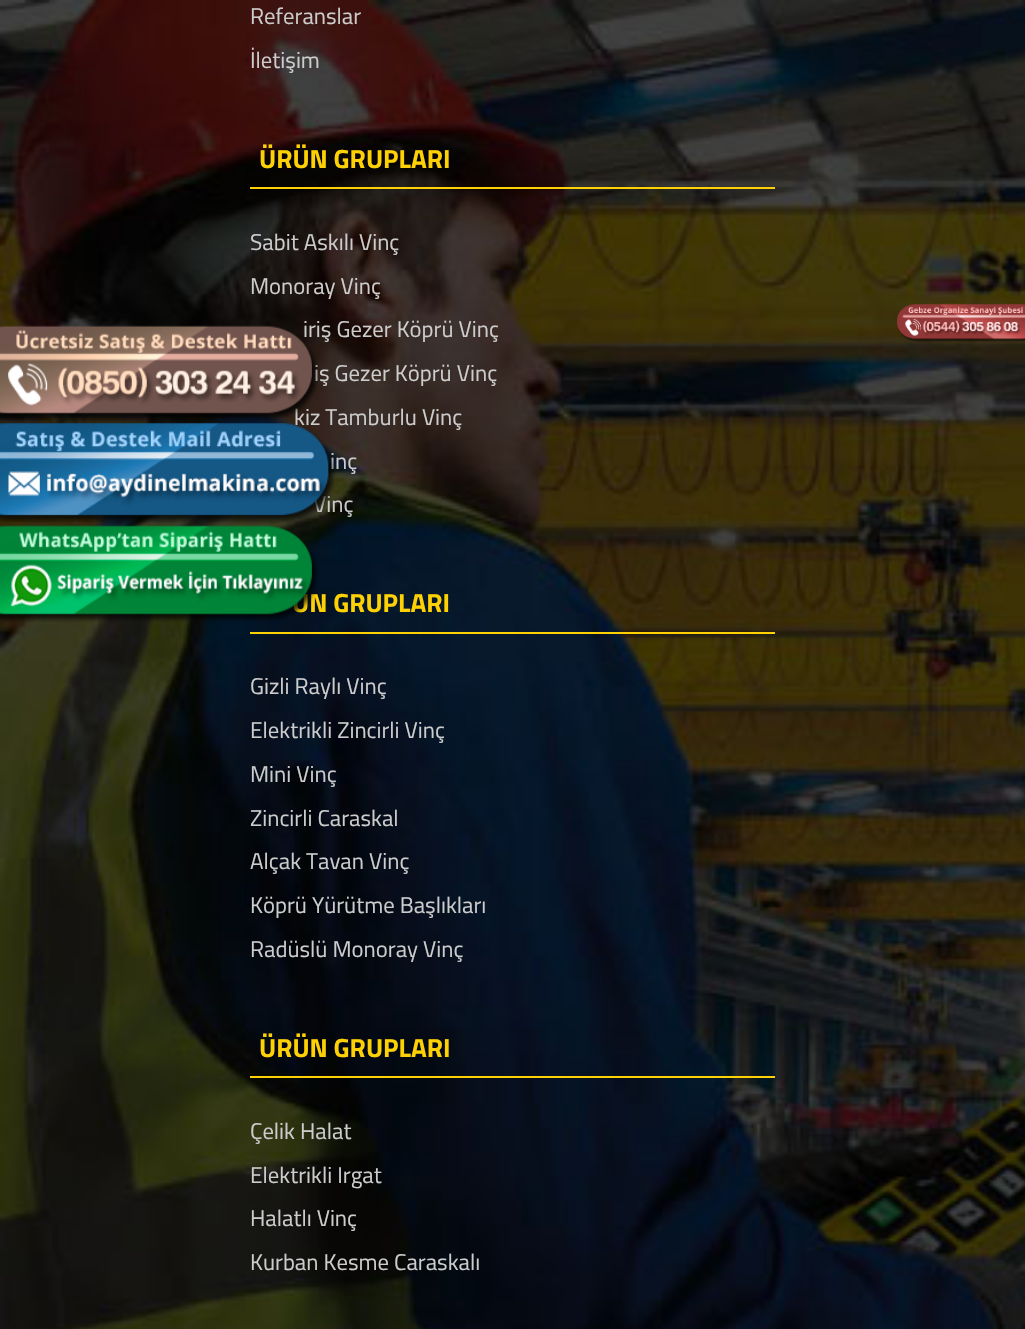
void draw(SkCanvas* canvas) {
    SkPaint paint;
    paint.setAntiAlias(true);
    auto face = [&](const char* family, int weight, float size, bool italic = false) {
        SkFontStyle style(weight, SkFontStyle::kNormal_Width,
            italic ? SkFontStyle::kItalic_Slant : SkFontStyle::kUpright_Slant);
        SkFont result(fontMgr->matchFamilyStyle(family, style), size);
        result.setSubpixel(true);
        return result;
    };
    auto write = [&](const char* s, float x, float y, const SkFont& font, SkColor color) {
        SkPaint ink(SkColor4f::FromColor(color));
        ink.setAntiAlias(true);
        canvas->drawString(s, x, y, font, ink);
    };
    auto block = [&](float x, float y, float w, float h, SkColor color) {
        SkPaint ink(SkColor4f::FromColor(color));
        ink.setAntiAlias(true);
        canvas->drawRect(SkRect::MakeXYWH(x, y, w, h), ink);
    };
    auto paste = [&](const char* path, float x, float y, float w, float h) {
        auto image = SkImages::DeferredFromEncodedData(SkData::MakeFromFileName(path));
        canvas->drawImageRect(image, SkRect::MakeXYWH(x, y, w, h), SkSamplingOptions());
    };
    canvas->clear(SK_ColorWHITE);
    paste("pic4.png", 0, 0, 1025, 1329);
    auto kFont1 = face("Titillium Web", 400, 22.75f);
    write("iriş Gezer Köprü Vinç", 303, 337, kFont1, SkColorSetRGB(204, 204, 204));
    write("iş Gezer Köprü Vinç", 314, 381, kFont1, SkColorSetRGB(204, 204, 204));
    write("kiz Tamburlu Vinç", 294, 425, kFont1, SkColorSetRGB(204, 204, 204));
    paste("pic1.png", 0, 325, 318, 97);
    write("inç", 330, 469, kFont1, SkColorSetRGB(204, 204, 204));
    write("Vinç", 313, 512, kFont1, SkColorSetRGB(204, 204, 204));
    paste("pic2.png", 0, 422, 335, 101);
    auto kFont2 = face("Titillium Web", 700, 26.25f);
    write("ÜN GRUPLARI", 292, 612, kFont2, SkColorSetRGB(254, 209, 5));
    paste("pic3.png", 0, 525, 318, 97);
    write("Referanslar", 250, 24, kFont1, SkColorSetRGB(204, 204, 204));
    write("İletişim", 250, 68, kFont1, SkColorSetRGB(204, 204, 204));
    block(250, 187, 525, 2, SkColorSetRGB(254, 209, 5));
    write("ÜRÜN GRUPLARI", 259, 168, kFont2, SkColorSetRGB(254, 209, 5));
    write("Sabit Askılı Vinç", 250, 250, kFont1, SkColorSetRGB(204, 204, 204));
    write("Monoray Vinç", 250, 294, kFont1, SkColorSetRGB(204, 204, 204));
    block(250, 632, 525, 2, SkColorSetRGB(254, 209, 5));
    write("Gizli Raylı Vinç", 250, 694, kFont1, SkColorSetRGB(204, 204, 204));
    write("Elektrikli Zincirli Vinç", 250, 738, kFont1, SkColorSetRGB(204, 204, 204));
    write("Mini Vinç", 250, 782, kFont1, SkColorSetRGB(204, 204, 204));
    write("Zincirli Caraskal", 250, 826, kFont1, SkColorSetRGB(204, 204, 204));
    write("Alçak Tavan Vinç", 250, 869, kFont1, SkColorSetRGB(204, 204, 204));
    write("Köprü Yürütme Başlıkları", 250, 913, kFont1, SkColorSetRGB(204, 204, 204));
    write("Radüslü Monoray Vinç", 250, 957, kFont1, SkColorSetRGB(204, 204, 204));
    block(250, 1076, 525, 2, SkColorSetRGB(254, 209, 5));
    write("ÜRÜN GRUPLARI", 259, 1057, kFont2, SkColorSetRGB(254, 209, 5));
    write("Çelik Halat", 250, 1139, kFont1, SkColorSetRGB(204, 204, 204));
    write("Elektrikli Irgat", 250, 1183, kFont1, SkColorSetRGB(204, 204, 204));
    write("Halatlı Vinç", 250, 1226, kFont1, SkColorSetRGB(204, 204, 204));
    write("Kurban Kesme Caraskalı", 250, 1270, kFont1, SkColorSetRGB(204, 204, 204));
    paste("pic5.png", 897, 303, 128, 39);
}
